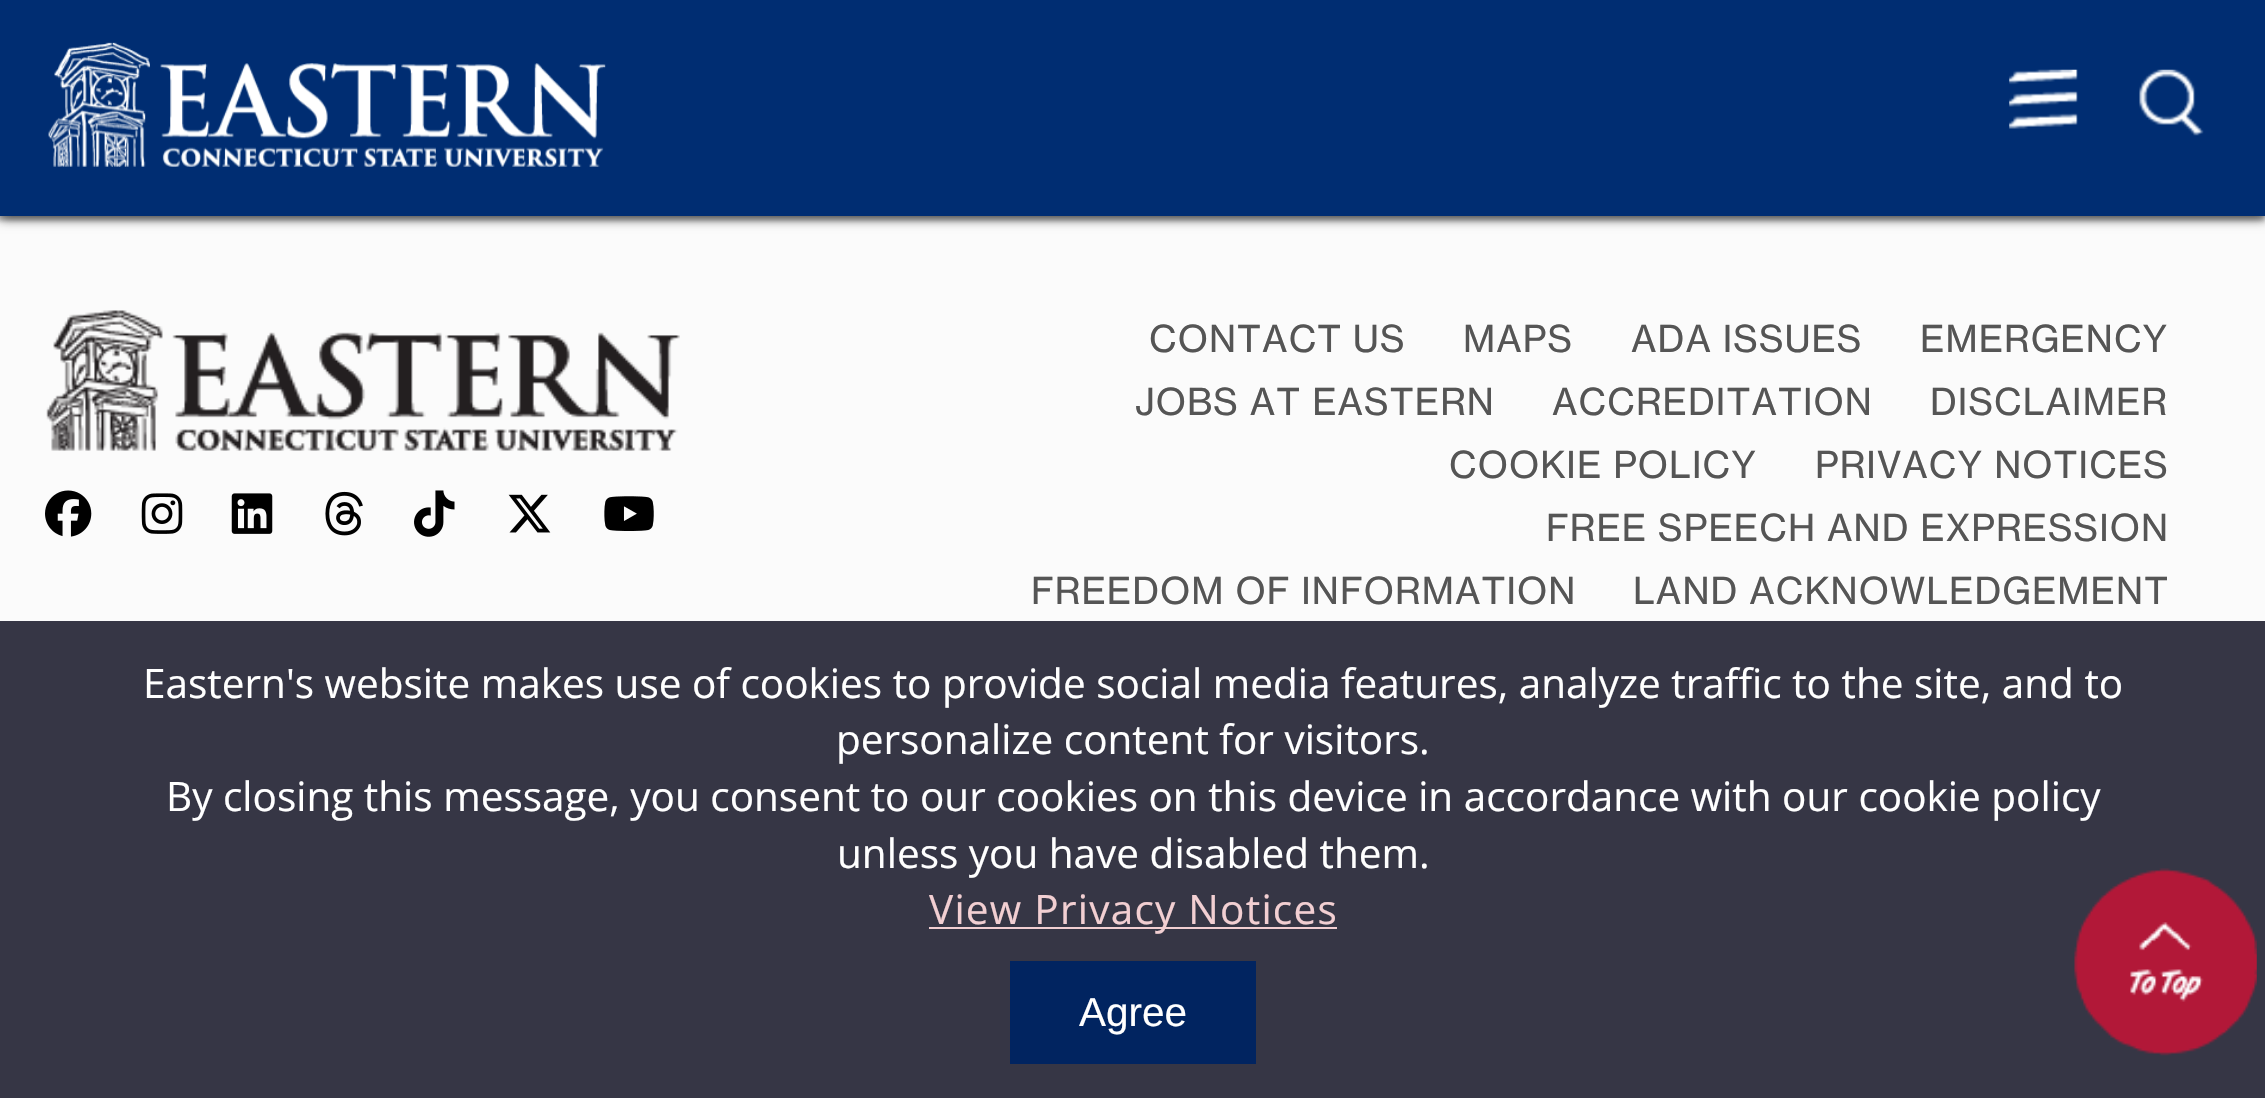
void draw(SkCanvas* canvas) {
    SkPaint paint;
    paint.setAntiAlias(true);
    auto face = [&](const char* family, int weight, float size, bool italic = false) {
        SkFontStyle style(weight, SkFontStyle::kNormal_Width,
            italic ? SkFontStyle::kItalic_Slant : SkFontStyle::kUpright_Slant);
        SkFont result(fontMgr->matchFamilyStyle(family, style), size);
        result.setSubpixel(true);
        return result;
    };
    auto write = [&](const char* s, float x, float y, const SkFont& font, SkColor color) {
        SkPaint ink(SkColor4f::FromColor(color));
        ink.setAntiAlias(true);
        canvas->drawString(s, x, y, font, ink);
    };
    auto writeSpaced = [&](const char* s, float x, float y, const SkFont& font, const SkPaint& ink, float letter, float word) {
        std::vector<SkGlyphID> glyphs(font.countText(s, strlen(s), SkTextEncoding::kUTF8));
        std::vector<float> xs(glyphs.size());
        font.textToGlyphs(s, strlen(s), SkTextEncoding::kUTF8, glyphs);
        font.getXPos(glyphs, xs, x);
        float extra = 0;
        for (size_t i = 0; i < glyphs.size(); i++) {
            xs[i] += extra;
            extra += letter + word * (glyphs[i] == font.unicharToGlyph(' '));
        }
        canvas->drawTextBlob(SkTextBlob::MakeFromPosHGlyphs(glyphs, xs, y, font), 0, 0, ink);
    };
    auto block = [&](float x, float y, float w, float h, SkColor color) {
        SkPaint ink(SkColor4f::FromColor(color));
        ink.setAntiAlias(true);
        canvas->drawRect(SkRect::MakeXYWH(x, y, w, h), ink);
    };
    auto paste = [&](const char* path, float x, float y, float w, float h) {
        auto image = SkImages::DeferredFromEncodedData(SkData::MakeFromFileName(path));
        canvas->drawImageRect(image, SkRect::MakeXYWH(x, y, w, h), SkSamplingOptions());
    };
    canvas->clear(SkColorSetRGB(251, 251, 251));
    block(0, 621, 2265, 477, SkColorSetRGB(54, 54, 69));
    paint.setColor(SkColorSetARGB(191, 0, 0, 0));
    paint.setMaskFilter(SkMaskFilter::MakeBlur(kNormal_SkBlurStyle, 5.5f));
    canvas->drawRect(SkRect::MakeXYWH(0, 2, 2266, 216), paint);
    paint.setMaskFilter(nullptr);
    paint.setColor(SkColorSetARGB(51, 0, 0, 0));
    paint.setMaskFilter(SkMaskFilter::MakeBlur(kNormal_SkBlurStyle, 2));
    canvas->drawRect(SkRect::MakeXYWH(-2, 5, 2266, 216), paint);
    paint.setMaskFilter(nullptr);
    block(0, 0, 2265, 216, SkColorSetRGB(0, 45, 114));
    paste("pic1.png", 48, 42, 558, 125);
    paste("pic2.png", 2009, 69, 69, 60);
    paste("pic3.png", 2139, 69, 65, 67);
    paste("pic4.png", 46, 310, 634, 141);
    paste("pic5.png", 45, 490, 47, 47);
    paste("pic6.png", 141, 493, 42, 41);
    paste("pic7.png", 231, 493, 42, 41);
    paste("pic8.png", 325, 491, 38, 45);
    paste("pic9.png", 414, 490, 41, 47);
    paste("pic10.png", 508, 494, 43, 39);
    paste("pic11.png", 604, 496, 50, 35);
    auto kFont1 = face("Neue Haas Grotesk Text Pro", 400, 36.5f);
    paint.setColor(SkColorSetRGB(85, 85, 85));
    writeSpaced("CONTACT US", 1149, 352, kFont1, paint, 1.1f, 0);
    writeSpaced("MAPS", 1463, 352, kFont1, paint, 1.1f, 0);
    writeSpaced("ADA ISSUES", 1631, 352, kFont1, paint, 1.1f, 0);
    writeSpaced("EMERGENCY", 1920, 352, kFont1, paint, 1.1f, 0);
    writeSpaced("JOBS AT EASTERN", 1135, 415, kFont1, paint, 1.1f, 0);
    writeSpaced("ACCREDITATION", 1552, 415, kFont1, paint, 1.1f, 0);
    writeSpaced("DISCLAIMER", 1930, 415, kFont1, paint, 1.1f, 0);
    writeSpaced("COOKIE POLICY", 1449, 478, kFont1, paint, 1.1f, 0);
    writeSpaced("PRIVACY NOTICES", 1815, 478, kFont1, paint, 1.1f, 0);
    writeSpaced("FREE SPEECH AND EXPRESSION", 1546, 541, kFont1, paint, 1.1f, 0);
    writeSpaced("FREEDOM OF INFORMATION", 1031, 604, kFont1, paint, 1.1f, 0);
    writeSpaced("LAND ACKNOWLEDGEMENT", 1633, 604, kFont1, paint, 1.1f, 0);
    auto kFont2 = face("Open Sans", 400, 40.5f);
    write("Eastern's website makes use of cookies to provide social media features, analyze traffic to the site, and to", 143, 698, kFont2, SK_ColorWHITE);
    write("personalize content for visitors.", 836, 754, kFont2, SK_ColorWHITE);
    write("By closing this message, you consent to our cookies on this device in accordance with our cookie policy", 166, 811, kFont2, SK_ColorWHITE);
    write("unless you have disabled them.", 837, 868, kFont2, SK_ColorWHITE);
    block(929, 927, 408, 2, SkColorSetRGB(242, 207, 210));
    paint.setColor(SkColorSetRGB(242, 207, 210));
    writeSpaced("View Privacy Notices", 929, 924, kFont2, paint, 1.25f, 0);
    block(1010, 961, 246, 103, SkColorSetRGB(1, 36, 96));
    auto kFont3 = face("Liberation Sans", 400, 40.5f);
    write("Agree", 1079, 1026, kFont3, SK_ColorWHITE);
    paste("pic12.png", 2074, 868, 183, 188);
}
